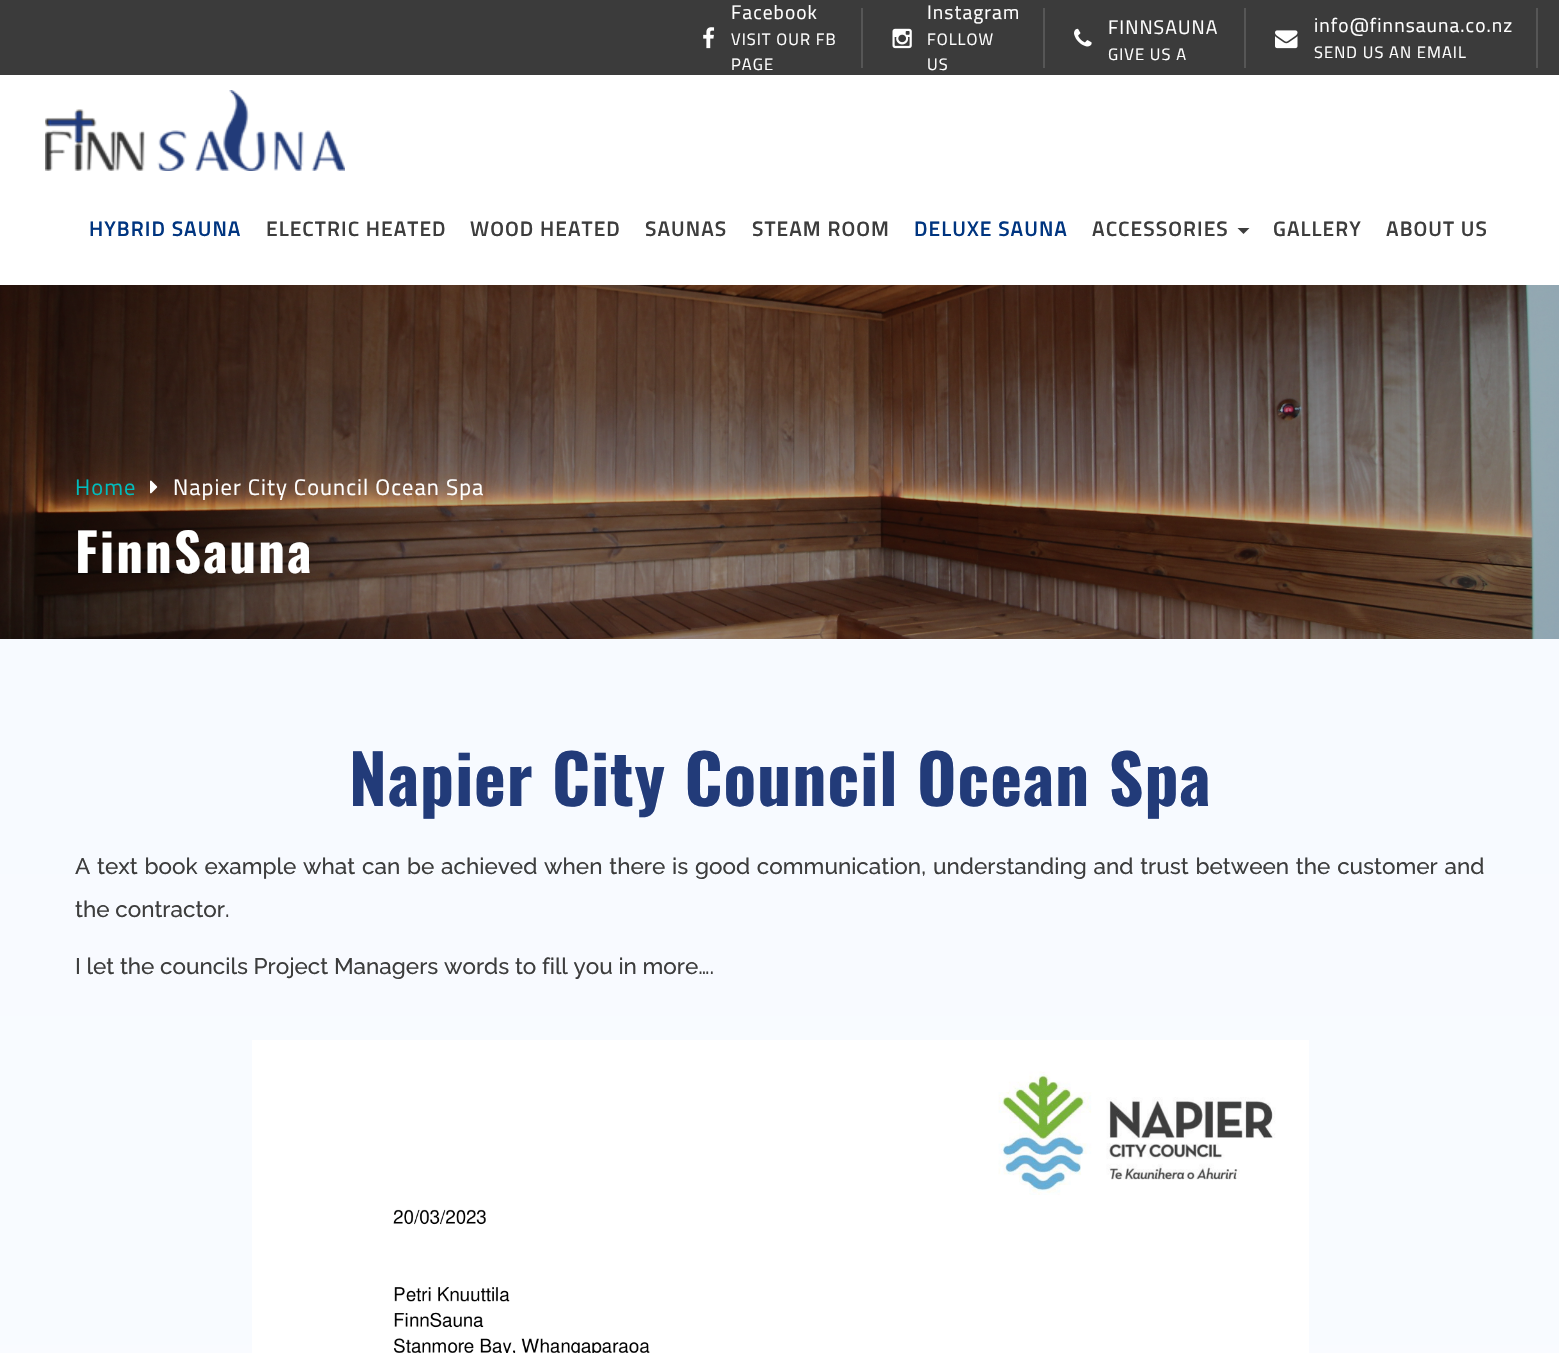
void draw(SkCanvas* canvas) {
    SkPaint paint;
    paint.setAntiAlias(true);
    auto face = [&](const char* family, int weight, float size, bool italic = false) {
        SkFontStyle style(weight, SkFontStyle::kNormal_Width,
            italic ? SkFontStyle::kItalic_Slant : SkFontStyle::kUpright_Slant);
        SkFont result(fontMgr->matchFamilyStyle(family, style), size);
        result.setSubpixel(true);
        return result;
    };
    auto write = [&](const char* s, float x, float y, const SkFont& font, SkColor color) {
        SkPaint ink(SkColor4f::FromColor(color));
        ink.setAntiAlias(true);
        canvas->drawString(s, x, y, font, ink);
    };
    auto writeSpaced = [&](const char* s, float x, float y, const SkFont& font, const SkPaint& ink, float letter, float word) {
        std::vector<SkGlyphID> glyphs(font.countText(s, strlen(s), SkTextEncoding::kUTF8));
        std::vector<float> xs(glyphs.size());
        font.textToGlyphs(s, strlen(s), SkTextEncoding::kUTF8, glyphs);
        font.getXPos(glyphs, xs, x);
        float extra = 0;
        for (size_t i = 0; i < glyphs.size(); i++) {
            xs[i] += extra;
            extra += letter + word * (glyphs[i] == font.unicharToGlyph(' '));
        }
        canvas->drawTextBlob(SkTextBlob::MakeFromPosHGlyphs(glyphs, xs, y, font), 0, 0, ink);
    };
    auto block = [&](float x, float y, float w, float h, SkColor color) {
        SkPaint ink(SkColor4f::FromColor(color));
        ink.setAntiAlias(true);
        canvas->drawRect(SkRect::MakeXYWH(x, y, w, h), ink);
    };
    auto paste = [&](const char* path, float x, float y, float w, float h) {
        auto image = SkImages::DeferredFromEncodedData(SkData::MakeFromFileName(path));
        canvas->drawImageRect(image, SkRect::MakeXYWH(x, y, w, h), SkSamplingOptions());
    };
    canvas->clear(SK_ColorWHITE);
    block(0, 0, 1559, 75, SkColorSetRGB(59, 59, 59));
    paste("pic1.png", 703, 27, 12, 22);
    auto kFont1 = face("Titillium Web", 400, 19.5f);
    paint.setColor(SK_ColorWHITE);
    writeSpaced("Facebook", 731, 19, kFont1, paint, 1.05f, 0);
    auto kFont2 = face("Titillium Web", 400, 16.5f);
    writeSpaced("VISIT OUR FB", 731, 45, kFont2, paint, 1.05f, 0);
    writeSpaced("PAGE", 731, 70, kFont2, paint, 1.05f, 0);
    block(861, 8, 2, 60, SkColorSetRGB(86, 86, 86));
    paste("pic2.png", 892, 28, 20, 21);
    writeSpaced("Instagram", 927, 19, kFont1, paint, 1.05f, 0);
    writeSpaced("FOLLOW", 927, 45, kFont2, paint, 1.05f, 0);
    writeSpaced("US", 927, 70, kFont2, paint, 1.05f, 0);
    block(1043, 8, 2, 60, SkColorSetRGB(86, 86, 86));
    paste("pic3.png", 1074, 28, 18, 19);
    writeSpaced("FINNSAUNA", 1108, 34, kFont1, paint, 1.05f, 0);
    writeSpaced("GIVE US A", 1108, 60, kFont2, paint, 1.05f, 0);
    block(1244, 8, 2, 60, SkColorSetRGB(86, 86, 86));
    paste("pic4.png", 1275, 30, 23, 19);
    writeSpaced("info@finnsauna.co.nz", 1314, 32, kFont1, paint, 1.05f, 0);
    writeSpaced("SEND US AN EMAIL", 1314, 58, kFont2, paint, 1.05f, 0);
    block(1536, 8, 2, 60, SkColorSetRGB(86, 86, 86));
    paste("pic5.png", 45, 90, 300, 81);
    auto kFont3 = face("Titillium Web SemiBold", 600, 21);
    paint.setColor(SkColorSetRGB(0, 53, 128));
    writeSpaced("HYBRID SAUNA", 89, 236, kFont3, paint, 1.05f, 0);
    paint.setColor(SkColorSetRGB(61, 61, 61));
    writeSpaced("ELECTRIC HEATED", 266, 236, kFont3, paint, 1.05f, 0);
    writeSpaced("WOOD HEATED", 470, 236, kFont3, paint, 1.05f, 0);
    writeSpaced("SAUNAS", 645, 236, kFont3, paint, 1.05f, 0);
    writeSpaced("STEAM ROOM", 752, 236, kFont3, paint, 1.05f, 0);
    paint.setColor(SkColorSetRGB(0, 53, 128));
    writeSpaced("DELUXE SAUNA", 914, 236, kFont3, paint, 1.05f, 0);
    paint.setColor(SkColorSetRGB(61, 61, 61));
    writeSpaced("ACCESSORIES", 1092, 236, kFont3, paint, 1.05f, 0);
    canvas->drawPath(SkPathBuilder().moveTo(1237.5f, 228).lineTo(1249.5f, 228).lineTo(1243.5f, 234).close().detach(), paint);
    writeSpaced("GALLERY", 1273, 236, kFont3, paint, 1.05f, 0);
    writeSpaced("ABOUT US", 1386, 236, kFont3, paint, 1.05f, 0);
    paste("pic6.png", 0, 285, 1559, 354);
    auto kFont4 = face("Titillium Web", 400, 22.5f);
    paint.setColor(SkColorSetRGB(0, 189, 189));
    writeSpaced("Home", 75, 495, kFont4, paint, 1.05f, 0);
    paste("pic7.png", 150, 480, 8, 14);
    paint.setColor(SK_ColorWHITE);
    writeSpaced("Napier City Council Ocean Spa", 173, 495, kFont4, paint, 1.05f, 0);
    auto kFont5 = face("Oswald", 700, 52.5f);
    writeSpaced("FinnSauna", 75, 573, kFont5, paint, 2.25f, 0);
    {
        const SkColor colors[] = {SkColorSetRGB(247, 250, 255), SK_ColorWHITE};
        const float stops[] = {0, 1};
        const SkPoint ends[] = {{780, 639}, {780, 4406}};
        paint.setShader(SkGradientShader::MakeLinear(ends, colors, stops, 2, SkTileMode::kClamp));
        paint.setAlpha(255);
    }
    canvas->drawRect(SkRect::MakeXYWH(0, 639, 1559, 714), paint);
    auto kFont6 = face("Oswald", 700, 67.5f);
    paint.setShader(nullptr);
    paint.setColor(SkColorSetRGB(34, 59, 121));
    writeSpaced("Napier City Council Ocean Spa", 349, 806, kFont6, paint, 1.05f, 0);
    auto kFont7 = face("Raleway", 500, 22.5f);
    paint.setColor(SkColorSetRGB(61, 61, 61));
    writeSpaced("A text book example what can be achieved when there is good communication,", 75, 874, kFont7, paint, 0, 1.1f);
    writeSpaced("understanding and trust between the customer and", 933, 874, kFont7, paint, 0, 1.1f);
    write("the contractor.", 75, 917, kFont7, SkColorSetRGB(61, 61, 61));
    write("I let the councils Project Managers words to fill you in more….", 75, 974, kFont7, SkColorSetRGB(61, 61, 61));
    paste("pic8.png", 252, 1040, 1057, 313);
}
